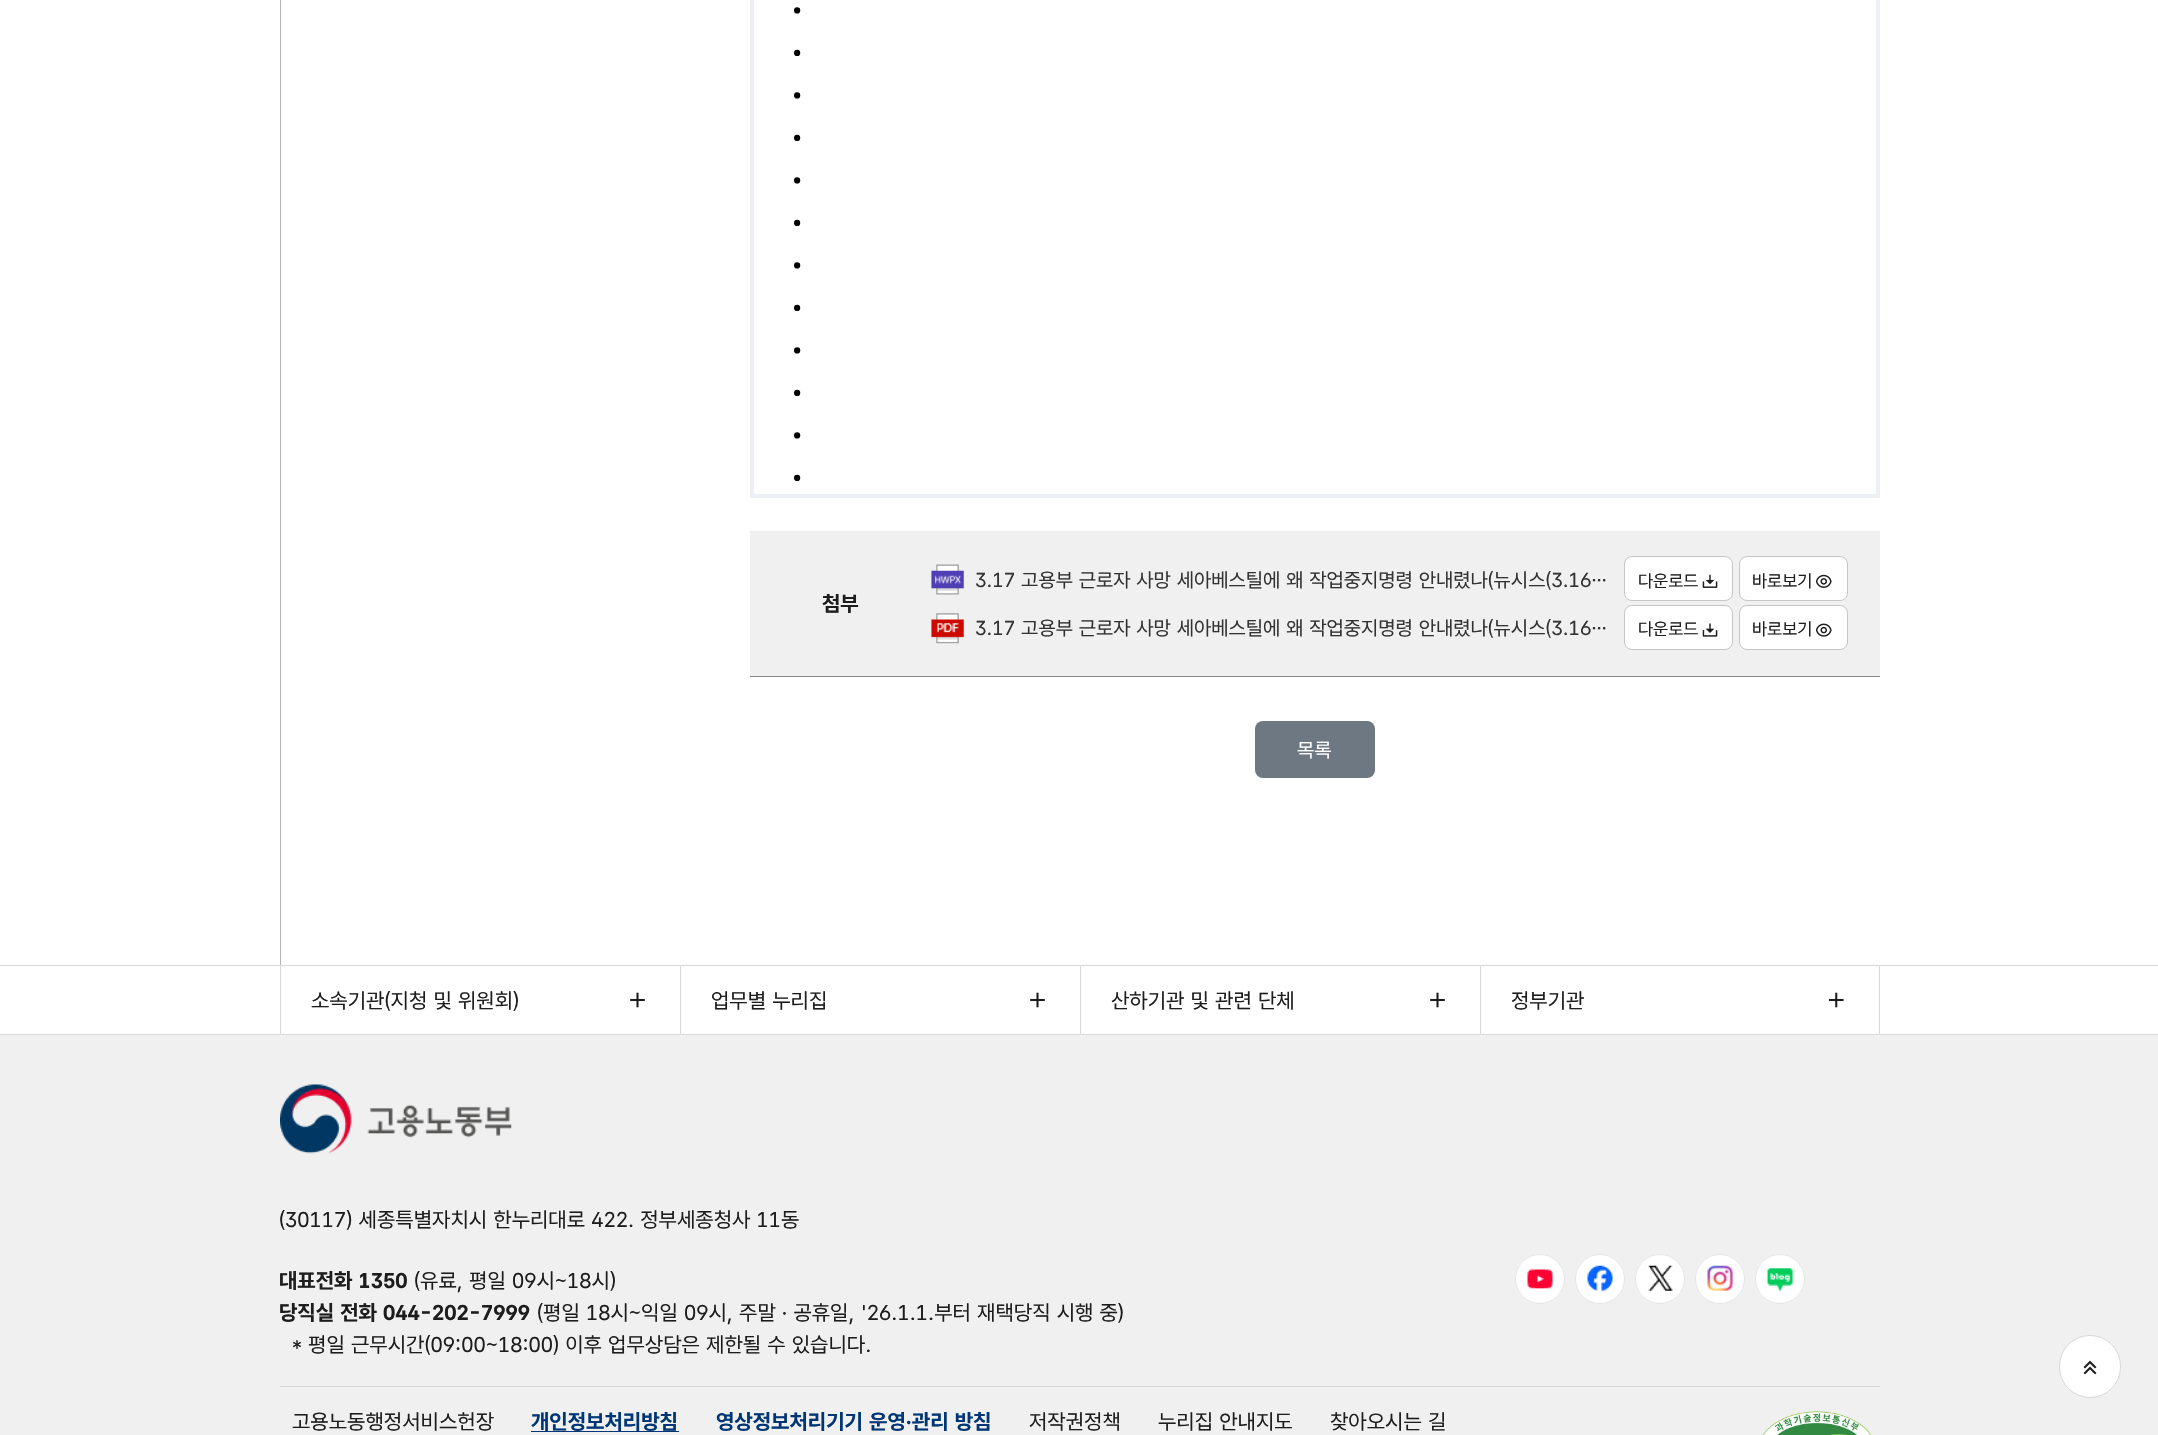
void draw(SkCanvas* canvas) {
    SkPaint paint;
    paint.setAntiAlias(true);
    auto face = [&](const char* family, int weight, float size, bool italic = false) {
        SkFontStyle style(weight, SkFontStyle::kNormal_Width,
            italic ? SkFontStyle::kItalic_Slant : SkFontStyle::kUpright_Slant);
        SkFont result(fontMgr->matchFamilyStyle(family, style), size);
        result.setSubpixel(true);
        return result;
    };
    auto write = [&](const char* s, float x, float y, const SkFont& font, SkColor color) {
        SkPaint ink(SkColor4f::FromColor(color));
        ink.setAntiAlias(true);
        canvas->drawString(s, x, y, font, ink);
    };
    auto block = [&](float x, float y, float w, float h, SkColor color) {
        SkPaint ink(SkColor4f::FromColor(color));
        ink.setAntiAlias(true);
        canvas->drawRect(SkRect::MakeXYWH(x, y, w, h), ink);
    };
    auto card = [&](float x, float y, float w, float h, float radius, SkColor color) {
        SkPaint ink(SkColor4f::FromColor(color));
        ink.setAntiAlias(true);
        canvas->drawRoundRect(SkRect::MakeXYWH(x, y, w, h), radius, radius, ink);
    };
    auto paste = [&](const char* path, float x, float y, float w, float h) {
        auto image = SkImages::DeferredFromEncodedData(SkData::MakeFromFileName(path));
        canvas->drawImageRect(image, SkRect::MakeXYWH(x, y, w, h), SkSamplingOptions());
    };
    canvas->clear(SK_ColorWHITE);
    block(280, 0, 1, 965, SkColorSetRGB(180, 180, 180));
    block(750, 676, 1130, 1, SkColorSetRGB(136, 136, 136));
    paint.setStyle(SkPaint::kStroke_Style);
    paint.setStrokeWidth(4);
    paint.setColor(SkColorSetRGB(237, 241, 245));
    canvas->drawRect(SkRect::MakeXYWH(752, -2, 1126, 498), paint);
    paste("pic1.png", 794, 7, 7, 474);
    block(750, 531, 1130, 145, SkColorSetRGB(240, 240, 240));
    auto kFont1 = face("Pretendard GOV", 700, 21.25f);
    write("첨부", 822, 611, kFont1, SkColorSetRGB(29, 29, 29));
    paste("pic2.png", 931, 564, 33, 31);
    auto kFont2 = face("Pretendard GOV", 400, 20);
    write("3.17 고용부 근로자 사망 세아베스틸에 왜 작업중지명령 안내렸나(뉴시스(3.16…", 975, 587, kFont2, SkColorSetRGB(51, 51, 51));
    paint.setStyle(SkPaint::kFill_Style);
    paint.setColor(SK_ColorWHITE);
    canvas->drawRoundRect(SkRect::MakeXYWH(1624.5f, 556.5f, 108, 44), 7.5f, 7.5f, paint);
    paint.setStyle(SkPaint::kStroke_Style);
    paint.setStrokeWidth(1);
    paint.setColor(SkColorSetRGB(198, 198, 198));
    canvas->drawRoundRect(SkRect::MakeXYWH(1624.5f, 556.5f, 108, 44), 7.5f, 7.5f, paint);
    auto kFont3 = face("Pretendard GOV", 400, 17.5f);
    write("다운로드", 1638, 587, kFont3, SkColorSetRGB(29, 29, 29));
    paste("pic3.png", 1702, 574, 16, 14);
    paint.setStyle(SkPaint::kFill_Style);
    paint.setColor(SK_ColorWHITE);
    canvas->drawRoundRect(SkRect::MakeXYWH(1739.5f, 556.5f, 108, 44), 7.5f, 7.5f, paint);
    paint.setStyle(SkPaint::kStroke_Style);
    paint.setColor(SkColorSetRGB(198, 198, 198));
    canvas->drawRoundRect(SkRect::MakeXYWH(1739.5f, 556.5f, 108, 44), 7.5f, 7.5f, paint);
    write("바로보기", 1752, 587, kFont3, SkColorSetRGB(29, 29, 29));
    paste("pic4.png", 1815, 574, 17, 14);
    paste("pic5.png", 931, 613, 33, 31);
    write("3.17 고용부 근로자 사망 세아베스틸에 왜 작업중지명령 안내렸나(뉴시스(3.16…", 975, 635, kFont2, SkColorSetRGB(51, 51, 51));
    paint.setStyle(SkPaint::kFill_Style);
    paint.setColor(SK_ColorWHITE);
    canvas->drawRoundRect(SkRect::MakeXYWH(1624.5f, 605.5f, 108, 44), 7.5f, 7.5f, paint);
    paint.setStyle(SkPaint::kStroke_Style);
    paint.setColor(SkColorSetRGB(198, 198, 198));
    canvas->drawRoundRect(SkRect::MakeXYWH(1624.5f, 605.5f, 108, 44), 7.5f, 7.5f, paint);
    write("다운로드", 1638, 635, kFont3, SkColorSetRGB(29, 29, 29));
    paste("pic6.png", 1702, 623, 16, 14);
    paint.setStyle(SkPaint::kFill_Style);
    paint.setColor(SK_ColorWHITE);
    canvas->drawRoundRect(SkRect::MakeXYWH(1739.5f, 605.5f, 108, 44), 7.5f, 7.5f, paint);
    paint.setStyle(SkPaint::kStroke_Style);
    paint.setColor(SkColorSetRGB(198, 198, 198));
    canvas->drawRoundRect(SkRect::MakeXYWH(1739.5f, 605.5f, 108, 44), 7.5f, 7.5f, paint);
    write("바로보기", 1752, 635, kFont3, SkColorSetRGB(29, 29, 29));
    paste("pic7.png", 1815, 623, 17, 14);
    card(1255, 721, 120, 57, 8, SkColorSetRGB(109, 120, 130));
    write("목록", 1297, 757, kFont2, SK_ColorWHITE);
    block(0, 1035, 2158, 400, SkColorSetRGB(240, 240, 240));
    block(0, 965, 2158, 1, SkColorSetRGB(216, 216, 216));
    block(0, 1034, 2158, 1, SkColorSetRGB(216, 216, 216));
    block(280, 966, 1, 68, SkColorSetRGB(216, 216, 216));
    auto kFont4 = face("Pretendard GOV", 400, 21.25f);
    write("소속기관(지청 및 위원회)", 311, 1008, kFont4, SkColorSetRGB(29, 29, 29));
    paste("pic8.png", 630, 992, 15, 16);
    block(680, 966, 1, 68, SkColorSetRGB(216, 216, 216));
    write("업무별 누리집", 711, 1008, kFont4, SkColorSetRGB(29, 29, 29));
    paste("pic8.png", 1030, 992, 15, 16);
    block(1080, 966, 1, 68, SkColorSetRGB(216, 216, 216));
    write("산하기관 및 관련 단체", 1111, 1008, kFont4, SkColorSetRGB(29, 29, 29));
    paste("pic8.png", 1430, 992, 15, 16);
    block(1879, 966, 1, 68, SkColorSetRGB(216, 216, 216));
    block(1480, 966, 1, 68, SkColorSetRGB(216, 216, 216));
    write("정부기관", 1511, 1008, kFont4, SkColorSetRGB(29, 29, 29));
    paste("pic9.png", 1828, 992, 16, 16);
    paste("pic10.png", 280, 1084, 232, 70);
    write("(30117) 세종특별자치시 한누리대로 422. 정부세종청사 11동", 279, 1227, kFont4, SkColorSetRGB(29, 29, 29));
    write("대표전화 1350", 279, 1288, kFont1, SkColorSetRGB(29, 29, 29));
    write("(유료, 평일 09시~18시)", 414, 1288, kFont4, SkColorSetRGB(29, 29, 29));
    write("당직실 전화 044-202-7999", 279, 1320, kFont1, SkColorSetRGB(29, 29, 29));
    write("(평일 18시~익일 09시, 주말 · 공휴일, '26.1.1.부터 재택당직 시행 중)", 537, 1320, kFont4, SkColorSetRGB(29, 29, 29));
    write("* 평일 근무시간(09:00~18:00) 이후 업무상담은 제한될 수 있습니다.", 292, 1352, kFont4, SkColorSetRGB(29, 29, 29));
    paint.setStyle(SkPaint::kFill_Style);
    paint.setColor(SK_ColorWHITE);
    canvas->drawCircle(1540, 1279, 25, paint);
    paste("pic11.png", 1527, 1269, 26, 20);
    paint.setStyle(SkPaint::kStroke_Style);
    paint.setColor(SkColorSetRGB(228, 228, 228));
    canvas->drawCircle(1540, 1279, 24.5f, paint);
    paint.setStyle(SkPaint::kFill_Style);
    paint.setColor(SK_ColorWHITE);
    canvas->drawCircle(1600, 1279, 25, paint);
    paste("pic12.png", 1587, 1265, 26, 26);
    paint.setStyle(SkPaint::kStroke_Style);
    paint.setColor(SkColorSetRGB(228, 228, 228));
    canvas->drawCircle(1600, 1279, 24.5f, paint);
    paint.setStyle(SkPaint::kFill_Style);
    paint.setColor(SK_ColorWHITE);
    canvas->drawCircle(1660, 1279, 25, paint);
    paste("pic13.png", 1648, 1265, 25, 26);
    paint.setStyle(SkPaint::kStroke_Style);
    paint.setColor(SkColorSetRGB(228, 228, 228));
    canvas->drawCircle(1660, 1279, 24.5f, paint);
    paint.setStyle(SkPaint::kFill_Style);
    paint.setColor(SK_ColorWHITE);
    canvas->drawCircle(1720, 1279, 25, paint);
    paste("pic14.png", 1707, 1265, 26, 26);
    paint.setStyle(SkPaint::kStroke_Style);
    paint.setColor(SkColorSetRGB(228, 228, 228));
    canvas->drawCircle(1720, 1279, 24.5f, paint);
    paint.setStyle(SkPaint::kFill_Style);
    paint.setColor(SK_ColorWHITE);
    canvas->drawCircle(1780, 1279, 25, paint);
    paste("pic15.png", 1767, 1268, 26, 23);
    paint.setStyle(SkPaint::kStroke_Style);
    paint.setColor(SkColorSetRGB(228, 228, 228));
    canvas->drawCircle(1780, 1279, 24.5f, paint);
    block(280, 1386, 1600, 1, SkColorSetRGB(216, 216, 216));
    write("고용노동행정서비스헌장", 292, 1429, kFont4, SkColorSetRGB(29, 29, 29));
    write("개인정보처리방침", 531, 1429, kFont1, SkColorSetRGB(0, 54, 117));
    block(531, 1431, 148, 1, SkColorSetRGB(0, 54, 117));
    write("영상정보처리기기 운영·관리 방침", 716, 1429, kFont1, SkColorSetRGB(0, 54, 117));
    write("저작권정책", 1029, 1429, kFont4, SkColorSetRGB(29, 29, 29));
    write("누리집 안내지도", 1158, 1429, kFont4, SkColorSetRGB(29, 29, 29));
    write("찾아오시는 길", 1330, 1429, kFont4, SkColorSetRGB(29, 29, 29));
    paste("pic16.png", 1762, 1411, 110, 24);
    paint.setStyle(SkPaint::kFill_Style);
    paint.setColor(SK_ColorWHITE);
    canvas->drawRoundRect(SkRect::MakeXYWH(2059.5f, 1335.5f, 61, 62), 30.5f, 30.5f, paint);
    paint.setStyle(SkPaint::kStroke_Style);
    paint.setColor(SkColorSetRGB(216, 216, 216));
    canvas->drawRoundRect(SkRect::MakeXYWH(2059.5f, 1335.5f, 61, 62), 30.5f, 30.5f, paint);
    paste("pic17.png", 2083, 1360, 14, 15);
}
